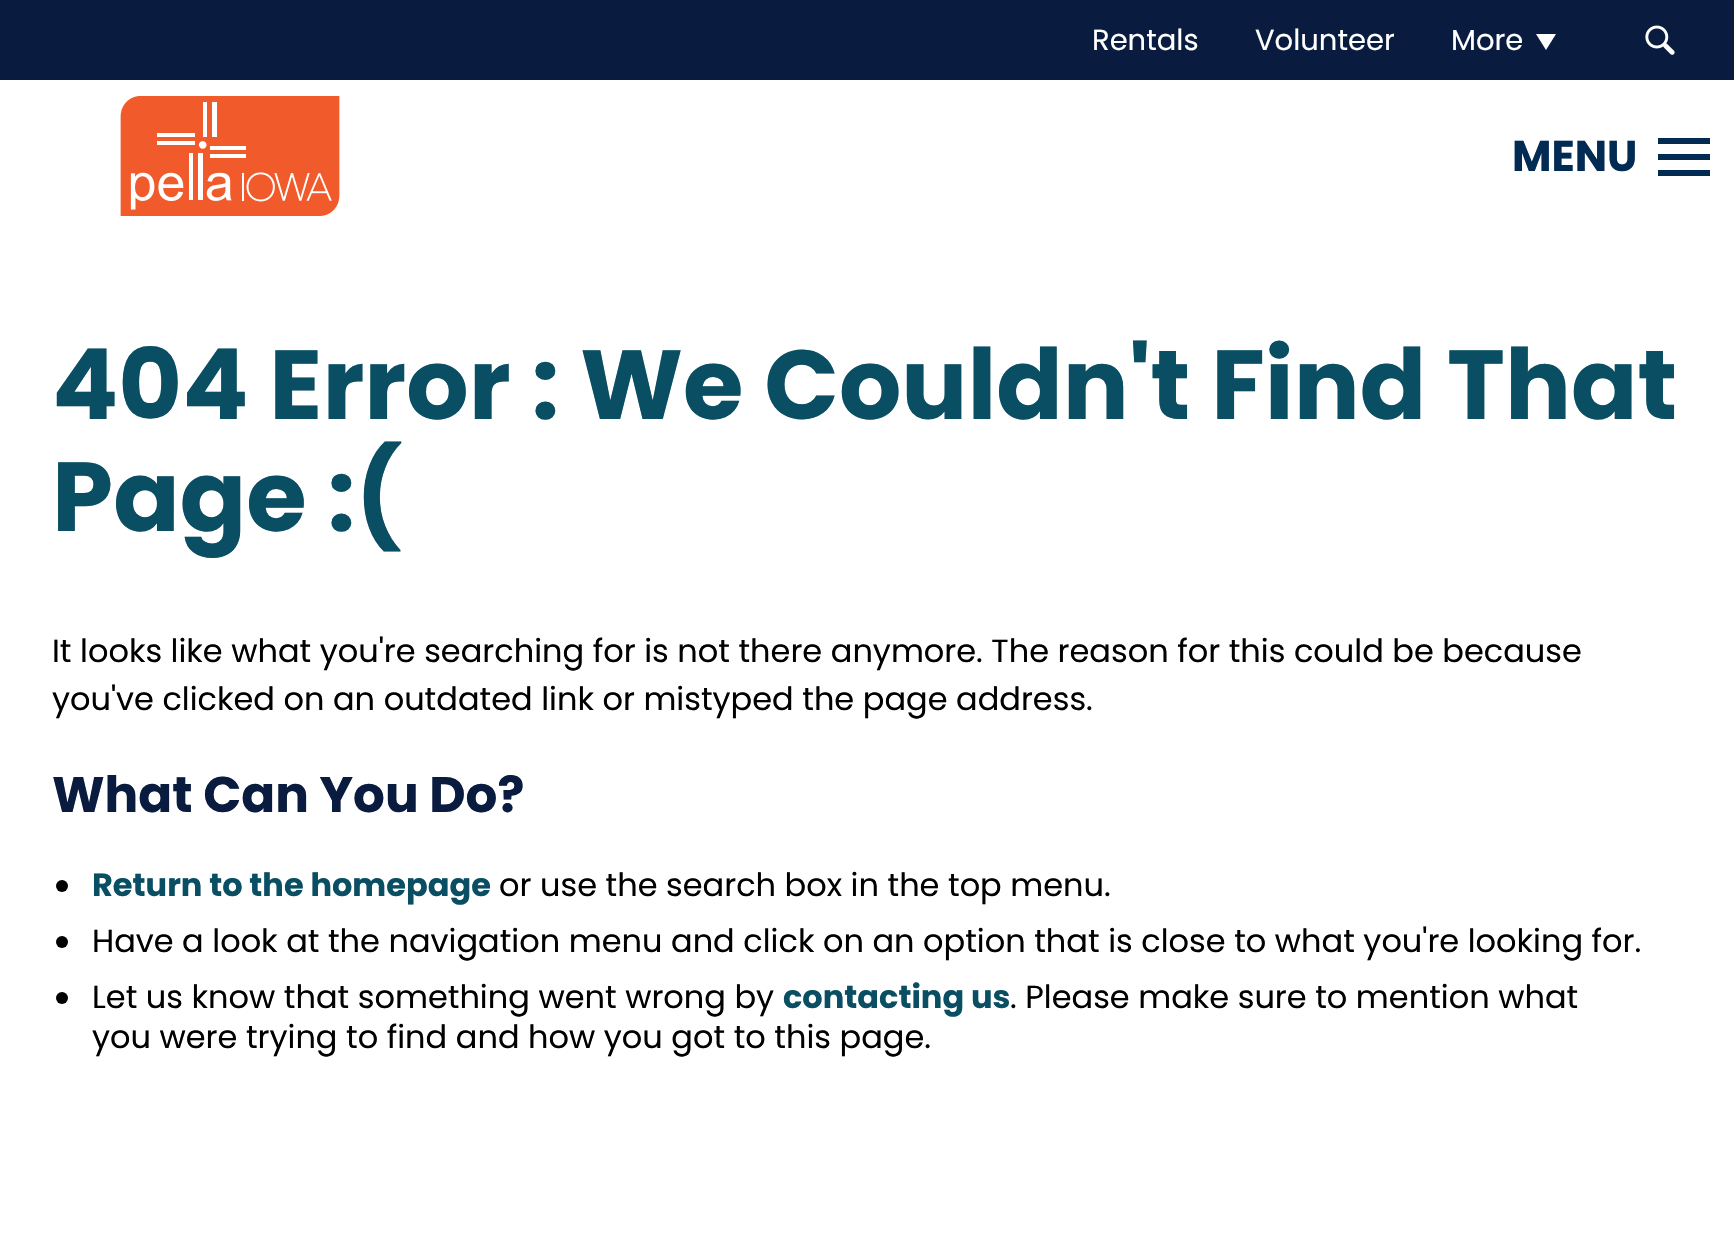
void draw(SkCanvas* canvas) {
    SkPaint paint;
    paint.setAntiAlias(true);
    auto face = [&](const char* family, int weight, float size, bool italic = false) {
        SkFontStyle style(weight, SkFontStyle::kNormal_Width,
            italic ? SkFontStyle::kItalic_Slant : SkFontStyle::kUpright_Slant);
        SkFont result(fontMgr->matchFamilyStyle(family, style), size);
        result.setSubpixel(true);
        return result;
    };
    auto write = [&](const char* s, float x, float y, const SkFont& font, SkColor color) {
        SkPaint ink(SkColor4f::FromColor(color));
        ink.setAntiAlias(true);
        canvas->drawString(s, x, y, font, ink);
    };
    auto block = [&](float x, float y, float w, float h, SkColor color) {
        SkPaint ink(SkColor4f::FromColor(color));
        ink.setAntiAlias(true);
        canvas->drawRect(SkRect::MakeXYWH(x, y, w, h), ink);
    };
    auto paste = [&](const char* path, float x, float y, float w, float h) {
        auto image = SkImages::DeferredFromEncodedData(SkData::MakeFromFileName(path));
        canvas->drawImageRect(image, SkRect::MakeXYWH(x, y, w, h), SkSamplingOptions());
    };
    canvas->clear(SK_ColorWHITE);
    block(0, 0, 1734, 80, SkColorSetRGB(9, 28, 64));
    auto kFont1 = face("Poppins", 400, 29);
    write("Rentals", 1092, 50, kFont1, SK_ColorWHITE);
    write("Volunteer", 1255, 50, kFont1, SK_ColorWHITE);
    write("More", 1451, 50, kFont1, SK_ColorWHITE);
    paint.setColor(SK_ColorWHITE);
    canvas->drawPath(SkPathBuilder().moveTo(1536, 34).lineTo(1556, 34).lineTo(1546, 50).close().detach(), paint);
    paste("pic1.png", 1645, 25, 30, 30);
    paste("pic2.png", 120, 96, 220, 120);
    auto kFont2 = face("Poppins", 700, 43);
    write("MENU", 1512, 171, kFont2, SkColorSetRGB(2, 43, 83));
    block(1658, 138, 52, 6, SkColorSetRGB(2, 43, 83));
    block(1658, 154, 52, 6, SkColorSetRGB(2, 43, 83));
    block(1658, 170, 52, 6, SkColorSetRGB(2, 43, 83));
    auto kFont3 = face("Poppins", 700, 98);
    write("404 Error : We Couldn't Find That", 52, 419, kFont3, SkColorSetRGB(9, 78, 99));
    write("Page :(", 52, 531, kFont3, SkColorSetRGB(9, 78, 99));
    auto kFont4 = face("Poppins", 400, 32);
    write("It looks like what you're searching for is not there anymore. The reason for this could be because", 52, 662, kFont4, SK_ColorBLACK);
    write("you've clicked on an outdated link or mistyped the page address.", 52, 710, kFont4, SK_ColorBLACK);
    auto kFont5 = face("Poppins", 700, 50);
    write("What Can You Do?", 52, 812, kFont5, SkColorSetRGB(9, 28, 64));
    paint.setColor(SK_ColorBLACK);
    canvas->drawCircle(62, 886, 6, paint);
    auto kFont6 = face("Poppins", 700, 32);
    write("Return to the homepage", 92, 896, kFont6, SkColorSetRGB(9, 78, 99));
    write("or use the search box in the top menu.", 499, 896, kFont4, SK_ColorBLACK);
    canvas->drawCircle(62, 942, 6, paint);
    write("Have a look at the navigation menu and click on an option that is close to what you're looking for.", 92, 952, kFont4, SK_ColorBLACK);
    canvas->drawCircle(62, 998, 6, paint);
    write("Let us know that something went wrong by", 92, 1008, kFont4, SK_ColorBLACK);
    write("contacting us", 783, 1008, kFont6, SkColorSetRGB(9, 78, 99));
    write(". Please make sure to mention what", 1010, 1008, kFont4, SK_ColorBLACK);
    write("you were trying to find and how you got to this page.", 92, 1048, kFont4, SK_ColorBLACK);
}
